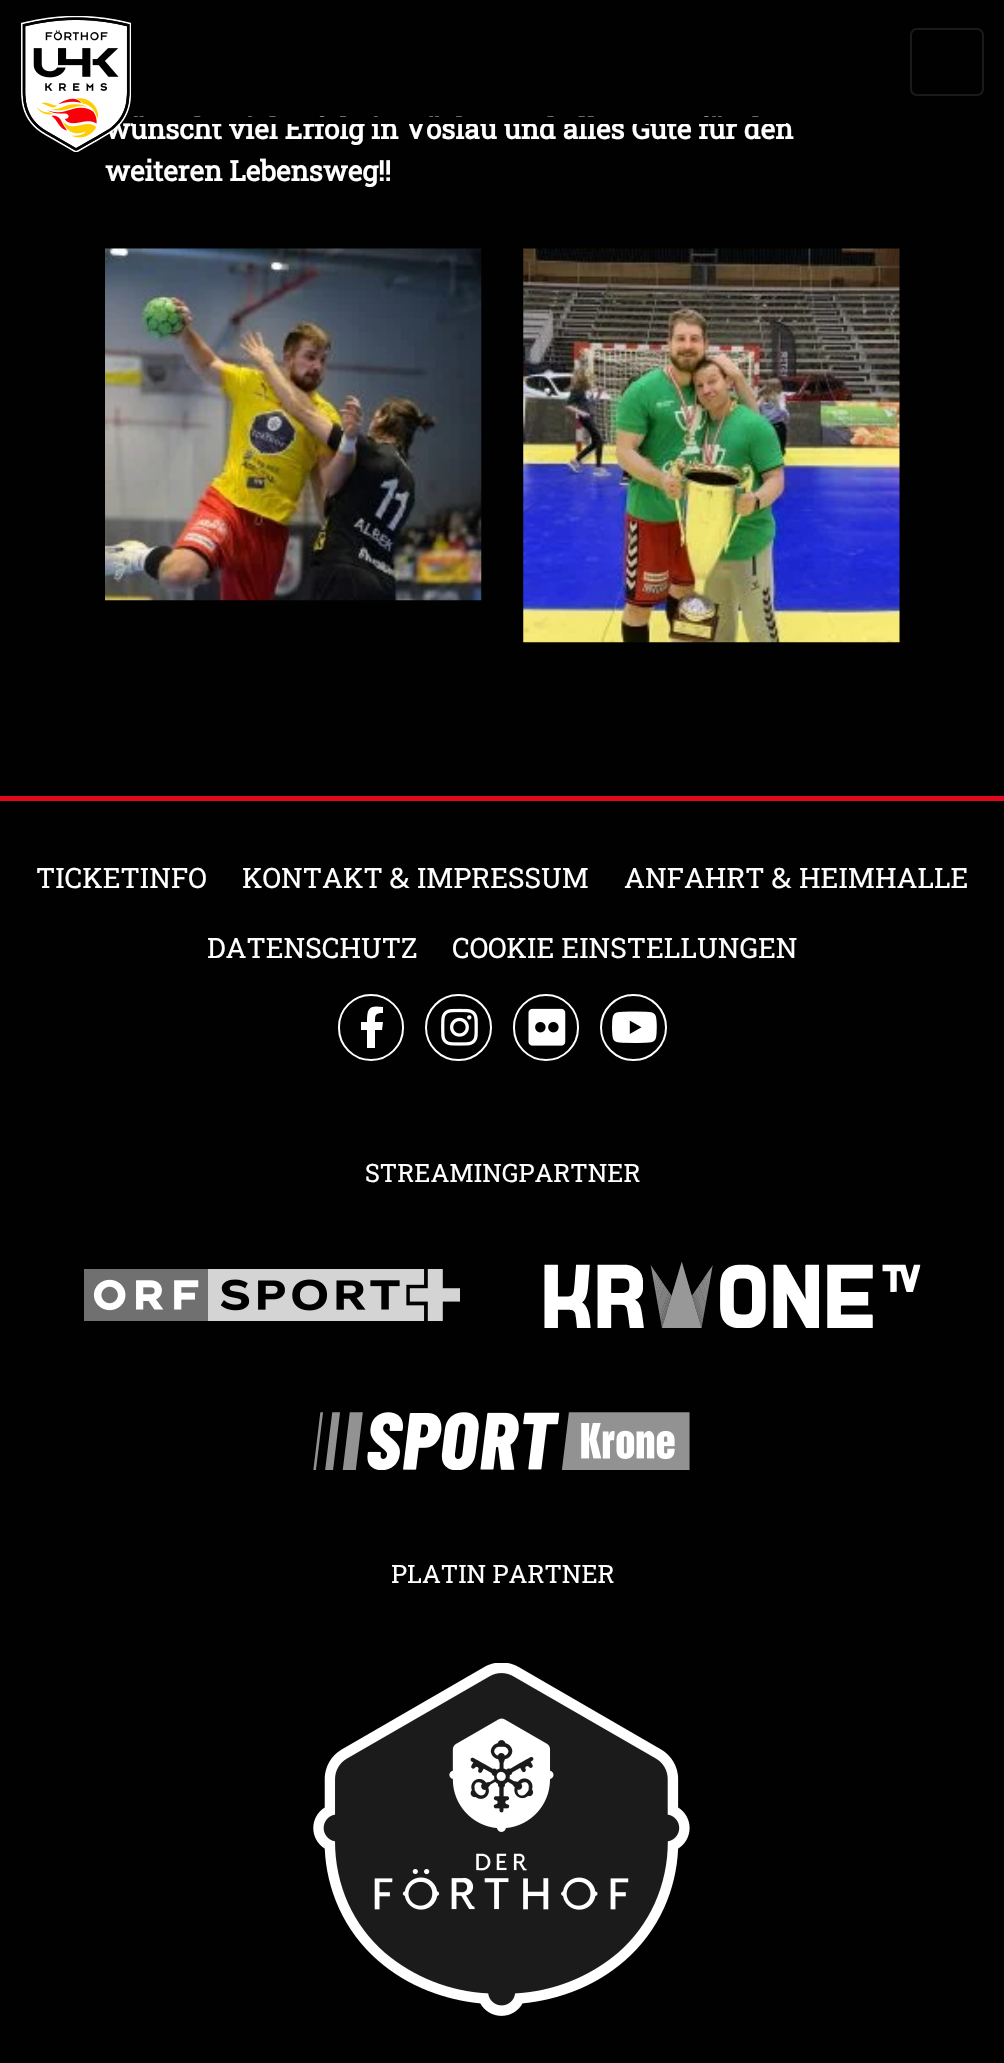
void draw(SkCanvas* canvas) {
    SkPaint paint;
    paint.setAntiAlias(true);
    auto face = [&](const char* family, int weight, float size, bool italic = false) {
        SkFontStyle style(weight, SkFontStyle::kNormal_Width,
            italic ? SkFontStyle::kItalic_Slant : SkFontStyle::kUpright_Slant);
        SkFont result(fontMgr->matchFamilyStyle(family, style), size);
        result.setSubpixel(true);
        return result;
    };
    auto write = [&](const char* s, float x, float y, const SkFont& font, SkColor color) {
        SkPaint ink(SkColor4f::FromColor(color));
        ink.setAntiAlias(true);
        canvas->drawString(s, x, y, font, ink);
    };
    auto block = [&](float x, float y, float w, float h, SkColor color) {
        SkPaint ink(SkColor4f::FromColor(color));
        ink.setAntiAlias(true);
        canvas->drawRect(SkRect::MakeXYWH(x, y, w, h), ink);
    };
    auto paste = [&](const char* path, float x, float y, float w, float h) {
        auto image = SkImages::DeferredFromEncodedData(SkData::MakeFromFileName(path));
        canvas->drawImageRect(image, SkRect::MakeXYWH(x, y, w, h), SkSamplingOptions());
    };
    canvas->clear(SkColorSetRGB(1, 1, 1));
    auto kFont1 = face("Roboto Slab", 700, 28);
    write("wünscht viel Erfolg in Vöslau und alles Gute für den", 105, 139, kFont1, SK_ColorWHITE);
    block(133, 117, 653, 7, SkColorSetRGB(1, 1, 1));
    paste("pic1.png", 21, 16, 110, 136);
    paint.setStyle(SkPaint::kStroke_Style);
    paint.setStrokeWidth(2);
    paint.setColor(SkColorSetRGB(26, 26, 26));
    canvas->drawRoundRect(SkRect::MakeXYWH(911, 29, 72, 66), 6, 6, paint);
    write("weiteren Lebensweg!!", 105, 181, kFont1, SK_ColorWHITE);
    paste("pic2.png", 105, 248, 377, 353);
    paste("pic3.png", 523, 248, 377, 395);
    block(0, 796, 1004, 5, SkColorSetRGB(225, 8, 27));
    auto kFont2 = face("Roboto Slab", 400, 28);
    write("TICKETINFO", 36, 888, kFont2, SK_ColorWHITE);
    write("KONTAKT", 242, 888, kFont2, SK_ColorWHITE);
    auto kFont3 = face("Noto Sans", 400, 28);
    write("&", 389, 888, kFont3, SK_ColorWHITE);
    write("IMPRESSUM", 417, 888, kFont2, SK_ColorWHITE);
    write("ANFAHRT", 624, 888, kFont2, SK_ColorWHITE);
    write("&", 771, 888, kFont3, SK_ColorWHITE);
    write("HEIMHALLE", 799, 888, kFont2, SK_ColorWHITE);
    write("DATENSCHUTZ", 207, 958, kFont2, SK_ColorWHITE);
    write("COOKIE EINSTELLUNGEN", 452, 958, kFont2, SK_ColorWHITE);
    paint.setColor(SK_ColorWHITE);
    canvas->drawRoundRect(SkRect::MakeXYWH(339, 995, 64, 65), 32, 32, paint);
    paint.setStyle(SkPaint::kFill_Style);
    canvas->drawPath(SkPathBuilder().moveTo(382, 1030).lineTo(375, 1030).lineTo(375, 1048).lineTo(367, 1048).lineTo(367, 1030).lineTo(361, 1030).lineTo(361, 1022).lineTo(367, 1022).cubicTo(367, 1008, 369, 1005, 383, 1007).lineTo(383, 1013).cubicTo(375, 1013, 375, 1015, 375, 1022).lineTo(383, 1022).close().detach(), paint);
    paint.setStyle(SkPaint::kStroke_Style);
    canvas->drawCircle(458.5f, 1027.5f, 32.5f, paint);
    paste("pic4.png", 441, 1008, 37, 38);
    canvas->drawRoundRect(SkRect::MakeXYWH(514, 995, 64, 65), 32, 32, paint);
    paste("pic5.png", 528, 1008, 38, 38);
    canvas->drawCircle(633.5f, 1027.5f, 32.5f, paint);
    paste("pic6.png", 612, 1011, 45, 32);
    auto kFont4 = face("Roboto Slab", 400, 25.25f);
    write("STREAMINGPARTNER", 365, 1182, kFont4, SK_ColorWHITE);
    paste("pic7.png", 84, 1269, 376, 52);
    paste("pic8.png", 544, 1262, 377, 66);
    paste("pic9.png", 313, 1412, 377, 58);
    write("PLATIN PARTNER", 391, 1583, kFont4, SK_ColorWHITE);
    paste("pic10.png", 313, 1663, 377, 353);
}
